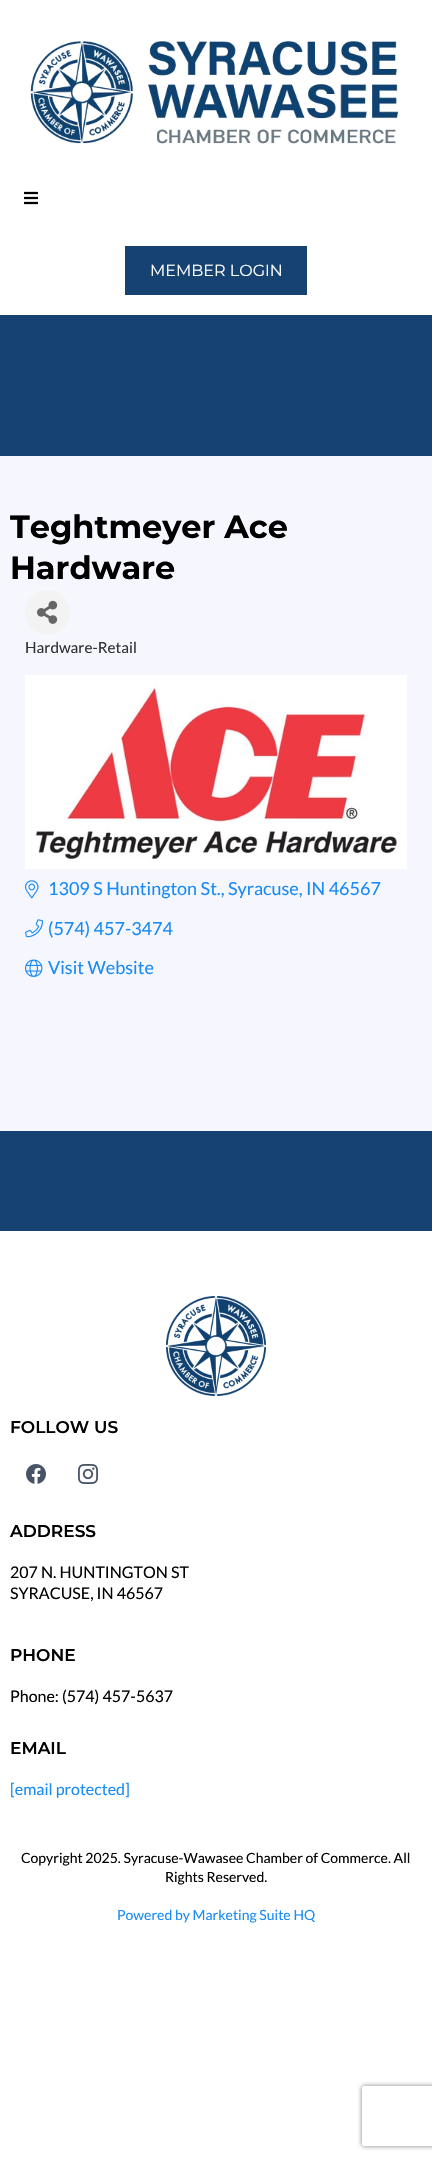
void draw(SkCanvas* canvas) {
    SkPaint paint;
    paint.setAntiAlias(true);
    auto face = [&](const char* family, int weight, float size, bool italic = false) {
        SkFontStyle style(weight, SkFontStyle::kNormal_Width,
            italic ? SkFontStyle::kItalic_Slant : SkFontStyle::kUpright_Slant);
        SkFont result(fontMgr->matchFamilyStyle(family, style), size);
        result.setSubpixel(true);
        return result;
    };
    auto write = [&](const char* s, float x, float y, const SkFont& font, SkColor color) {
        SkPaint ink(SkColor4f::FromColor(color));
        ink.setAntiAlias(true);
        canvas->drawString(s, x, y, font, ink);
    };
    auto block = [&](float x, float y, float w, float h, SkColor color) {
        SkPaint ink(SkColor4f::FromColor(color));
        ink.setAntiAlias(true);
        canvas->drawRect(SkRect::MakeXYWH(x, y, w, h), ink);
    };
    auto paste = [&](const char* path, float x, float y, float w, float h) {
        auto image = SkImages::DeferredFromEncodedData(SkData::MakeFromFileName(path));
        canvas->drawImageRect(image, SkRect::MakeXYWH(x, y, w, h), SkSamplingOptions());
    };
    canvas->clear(SK_ColorWHITE);
    block(0, 315, 432, 141, SkColorSetRGB(21, 66, 112));
    paste("pic1.png", 30, 41, 368, 103);
    paste("pic2.png", 24, 191, 14, 14);
    block(125, 246, 182, 49, SkColorSetRGB(21, 66, 112));
    auto kFont1 = face("Montserrat", 400, 16);
    write("MEMBER LOGIN", 150, 276, kFont1, SK_ColorWHITE);
    block(0, 456, 432, 675, SkColorSetRGB(246, 246, 255));
    auto kFont2 = face("Montserrat", 700, 32);
    write("Teghtmeyer Ace", 10, 538, kFont2, SK_ColorBLACK);
    write("Hardware", 10, 579, kFont2, SK_ColorBLACK);
    paint.setColor(SkColorSetRGB(243, 243, 243));
    canvas->drawCircle(47.5f, 612.5f, 22.5f, paint);
    paste("pic3.png", 37, 600, 21, 24);
    auto kFont3 = face("Lato", 400, 15.25f);
    write("Hardware-Retail", 25, 653, kFont3, SkColorSetRGB(49, 49, 51));
    paste("pic4.png", 25, 675, 382, 194);
    paste("pic5.png", 25, 880, 14, 19);
    auto kFont4 = face("Lato", 400, 18);
    write("1309 S Huntington St., Syracuse, IN 46567", 48, 895, kFont4, SkColorSetRGB(24, 139, 246));
    paste("pic6.png", 25, 919, 18, 19);
    write("(574) 457-3474", 48, 935, kFont4, SkColorSetRGB(24, 139, 246));
    paste("pic7.png", 25, 959, 18, 18);
    write("Visit Website", 48, 974, kFont4, SkColorSetRGB(24, 139, 246));
    block(0, 1131, 432, 100, SkColorSetRGB(21, 66, 112));
    paste("pic8.png", 166, 1296, 100, 100);
    auto kFont5 = face("Montserrat", 600, 17);
    write("FOLLOW US", 10, 1433, kFont5, SK_ColorBLACK);
    paste("pic9.png", 26, 1464, 20, 20);
    paste("pic10.png", 78, 1464, 20, 20);
    write("ADDRESS", 10, 1537, kFont5, SK_ColorBLACK);
    auto kFont6 = face("Lato", 400, 16);
    write("207 N. HUNTINGTON ST", 10, 1578, kFont6, SK_ColorBLACK);
    write("SYRACUSE, IN 46567", 10, 1599, kFont6, SK_ColorBLACK);
    write("PHONE", 10, 1661, kFont5, SK_ColorBLACK);
    write("Phone: (574) 457-5637", 10, 1702, kFont6, SK_ColorBLACK);
    write("EMAIL", 10, 1754, kFont5, SK_ColorBLACK);
    write("[email protected]", 10, 1795, kFont6, SkColorSetRGB(24, 139, 246));
    auto kFont7 = face("Lato", 400, 14);
    write("Copyright 2025. Syracuse-Wawasee Chamber of Commerce. All", 21, 1863, kFont7, SK_ColorBLACK);
    write("Rights Reserved.", 165, 1882, kFont7, SK_ColorBLACK);
    write("Powered by Marketing Suite HQ", 117, 1920, kFont7, SkColorSetRGB(24, 139, 246));
    canvas->save();
    canvas->clipPath(SkPathBuilder(SkPathFillType::kEvenOdd).moveTo(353, 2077).lineTo(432, 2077).lineTo(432, 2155).lineTo(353, 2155).close().moveTo(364, 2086).lineTo(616, 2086).cubicTo(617, 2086, 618, 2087, 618, 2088).lineTo(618, 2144).cubicTo(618, 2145, 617, 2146, 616, 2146).lineTo(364, 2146).cubicTo(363, 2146, 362, 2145, 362, 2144).lineTo(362, 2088).cubicTo(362, 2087, 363, 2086, 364, 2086).close().detach(), true);
    paint.setColor(SkColorSetRGB(128, 128, 128));
    paint.setMaskFilter(SkMaskFilter::MakeBlur(kNormal_SkBlurStyle, 2.5f));
    canvas->drawRoundRect(SkRect::MakeXYWH(362, 2086, 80, 60), 2, 2, paint);
    paint.setMaskFilter(nullptr);
    canvas->restore();
}
